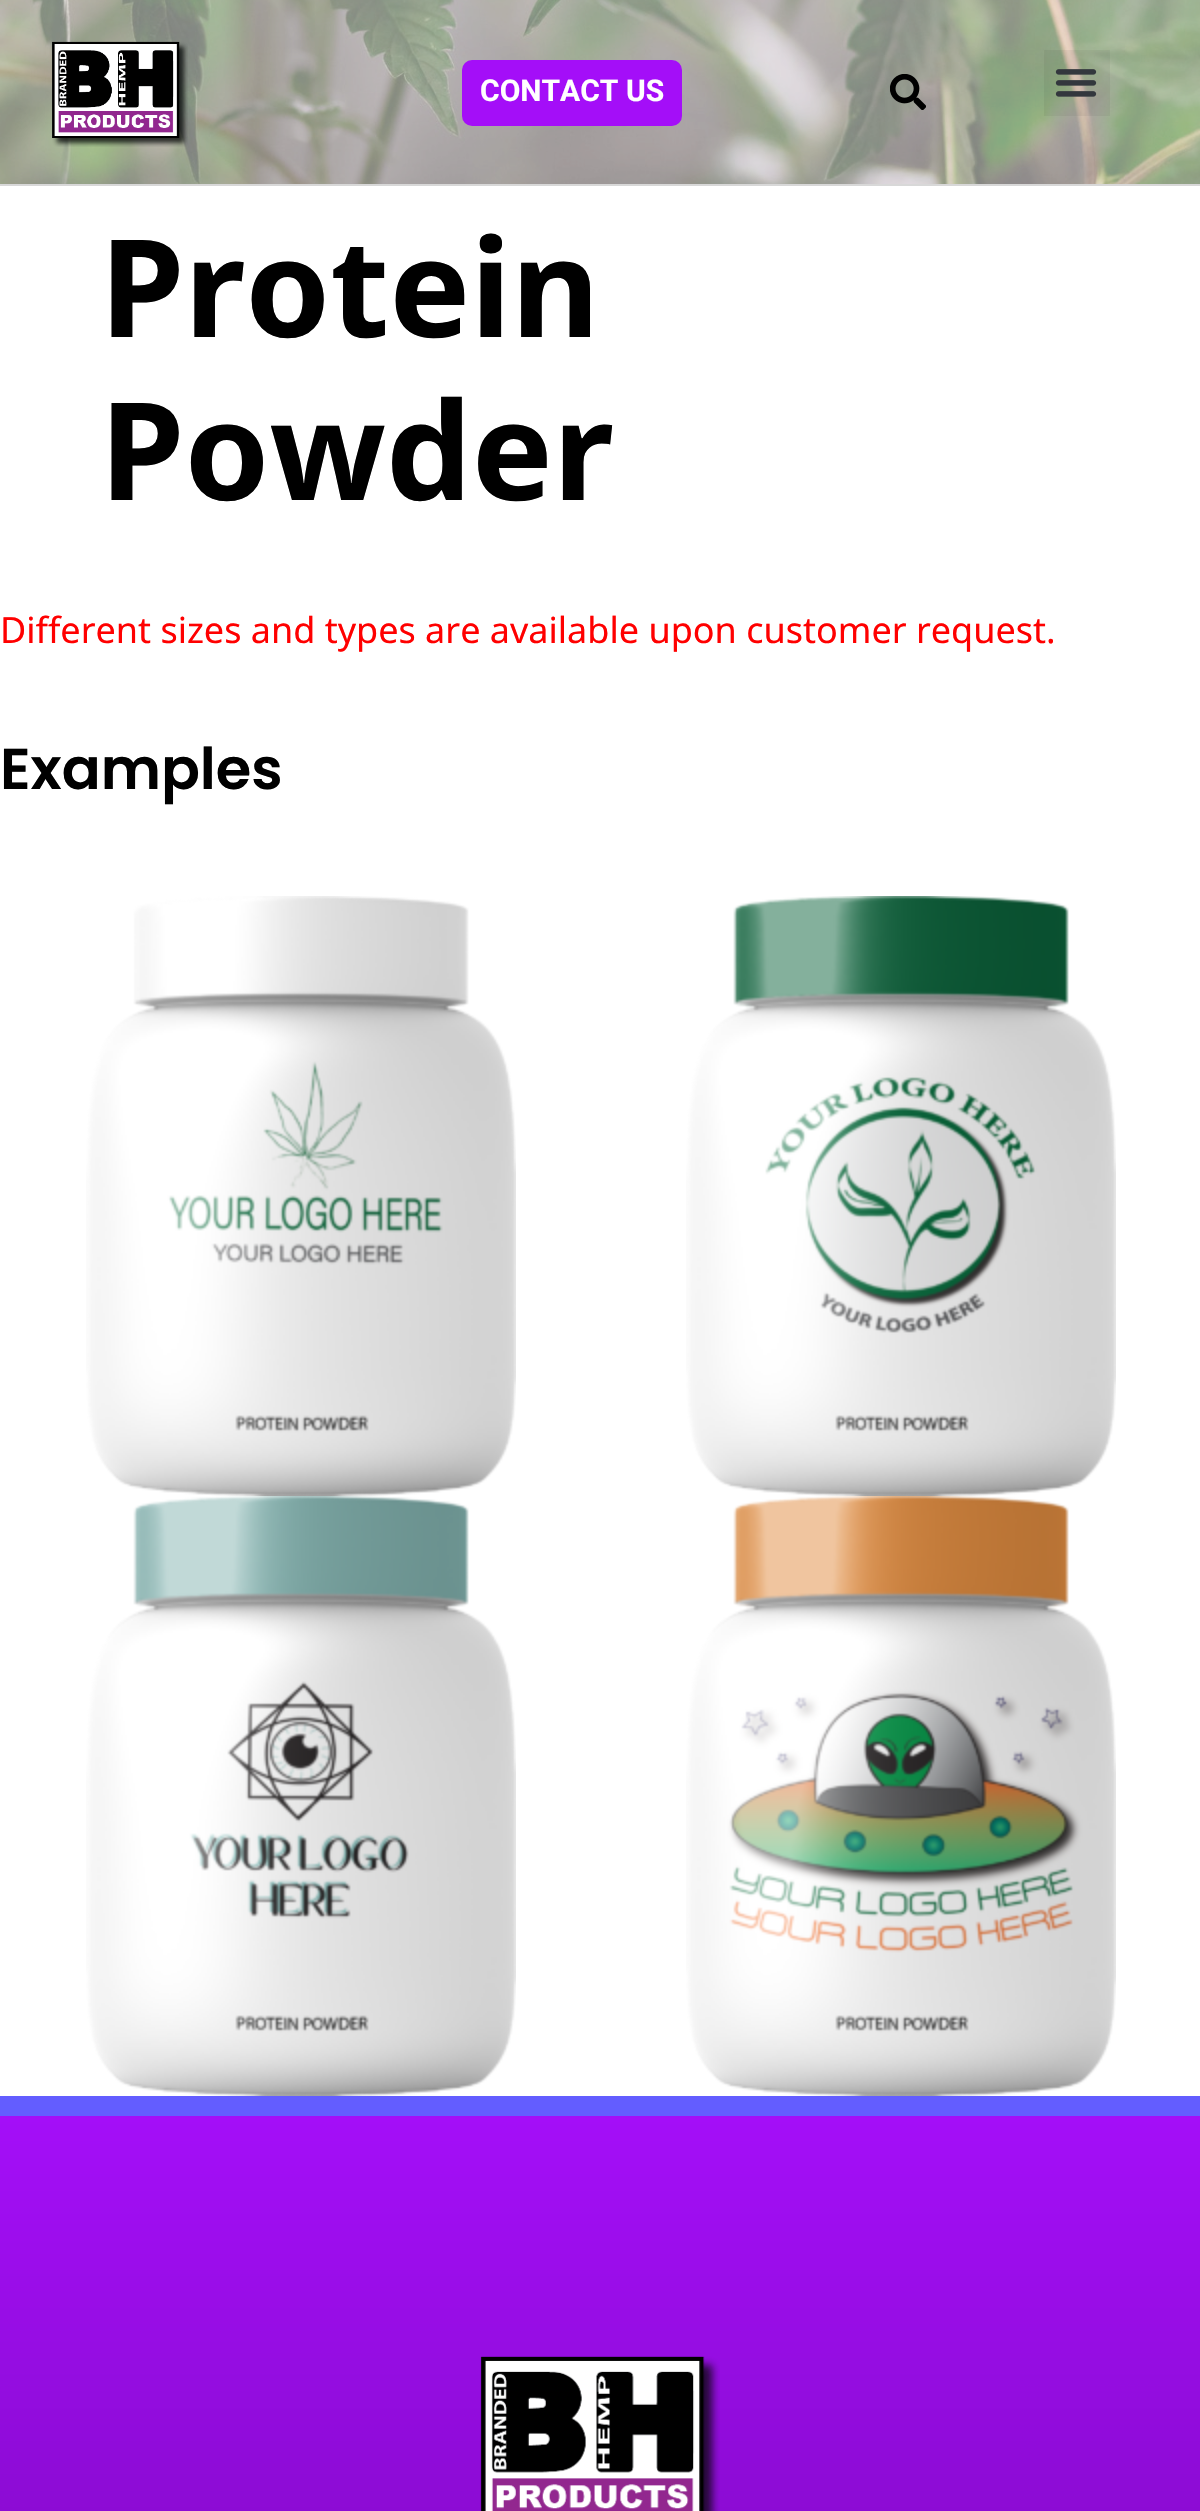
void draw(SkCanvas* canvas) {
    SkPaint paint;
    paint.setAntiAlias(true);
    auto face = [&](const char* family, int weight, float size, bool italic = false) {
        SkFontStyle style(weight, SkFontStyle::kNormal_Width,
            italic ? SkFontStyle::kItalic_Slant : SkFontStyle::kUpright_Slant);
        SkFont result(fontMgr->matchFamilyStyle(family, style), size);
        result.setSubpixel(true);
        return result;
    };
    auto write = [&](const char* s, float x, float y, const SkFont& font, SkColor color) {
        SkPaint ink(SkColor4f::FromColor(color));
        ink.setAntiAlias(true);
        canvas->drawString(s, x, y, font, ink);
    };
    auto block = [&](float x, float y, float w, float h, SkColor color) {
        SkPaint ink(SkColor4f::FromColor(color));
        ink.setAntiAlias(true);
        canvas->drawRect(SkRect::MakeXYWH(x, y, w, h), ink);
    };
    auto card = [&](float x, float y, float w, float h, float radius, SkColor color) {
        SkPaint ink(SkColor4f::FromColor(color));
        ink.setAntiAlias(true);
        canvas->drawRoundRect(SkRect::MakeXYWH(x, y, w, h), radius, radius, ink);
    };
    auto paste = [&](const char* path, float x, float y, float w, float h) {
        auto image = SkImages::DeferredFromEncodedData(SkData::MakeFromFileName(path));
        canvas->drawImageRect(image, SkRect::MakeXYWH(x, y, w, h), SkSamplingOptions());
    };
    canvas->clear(SK_ColorWHITE);
    paste("pic1.png", 0, 0, 1200, 184);
    block(0, 184, 1200, 2, SkColorSetRGB(216, 216, 216));
    paste("pic2.png", 52, 41, 136, 106);
    card(462, 60, 220, 66, 10, SkColorSetRGB(164, 14, 248));
    auto kFont1 = face("Roboto", 700, 30);
    write("CONTACT US", 480, 101, kFont1, SK_ColorWHITE);
    paste("pic3.png", 890, 74, 36, 36);
    block(1044, 50, 66, 66, SkColorSetARGB(13, 0, 0, 0));
    paste("pic4.png", 1055, 69, 42, 28);
    auto kFont2 = face("Noto Sans", 700, 136);
    write("Protein", 100, 337, kFont2, SK_ColorBLACK);
    write("Powder", 100, 500, kFont2, SK_ColorBLACK);
    auto kFont3 = face("Noto Sans", 400, 36);
    write("Different sizes and types are available upon customer request.", 0, 643, kFont3, SkColorSetRGB(255, 0, 0));
    auto kFont4 = face("Poppins", 600, 57.5f);
    write("Examples", 0, 789, kFont4, SK_ColorBLACK);
    paste("pic5.png", 86, 896, 430, 600);
    paste("pic6.png", 686, 896, 430, 600);
    paste("pic7.png", 86, 1496, 430, 600);
    paste("pic8.png", 686, 1496, 430, 600);
    {
        const SkColor colors[] = {SkColorSetRGB(164, 14, 248), SK_ColorBLACK};
        const float stops[] = {0, 1};
        const SkPoint ends[] = {{600, 2116}, {600, 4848}};
        paint.setShader(SkGradientShader::MakeLinear(ends, colors, stops, 2, SkTileMode::kClamp));
        paint.setAlpha(255);
    }
    canvas->drawRect(SkRect::MakeXYWH(0, 2116, 1200, 395), paint);
    block(0, 2096, 1200, 20, SkColorSetRGB(99, 93, 255));
    paste("pic9.png", 480, 2356, 240, 155);
}
